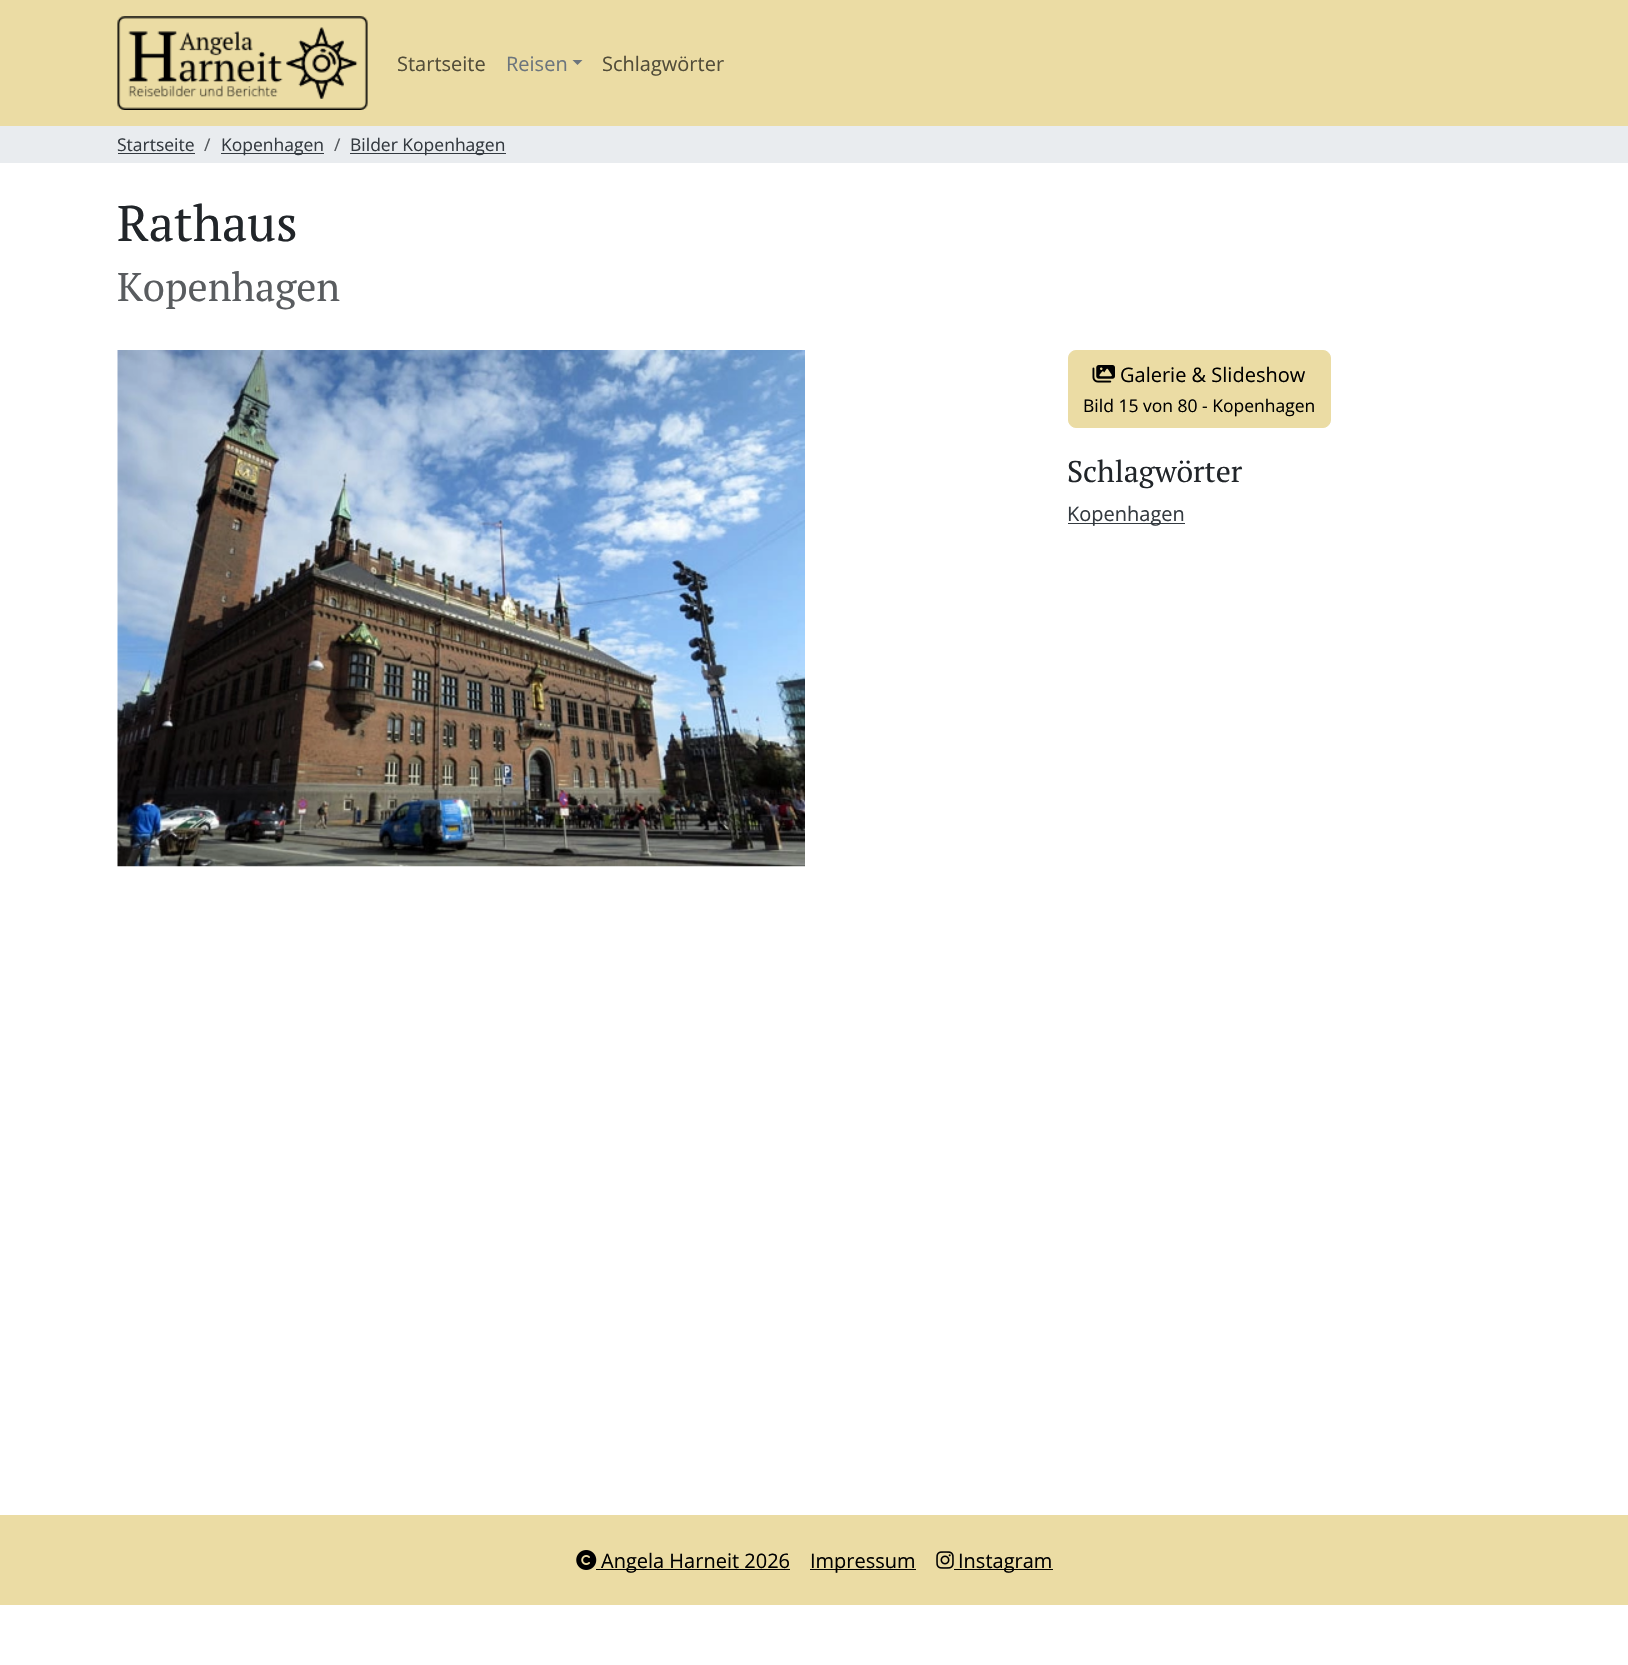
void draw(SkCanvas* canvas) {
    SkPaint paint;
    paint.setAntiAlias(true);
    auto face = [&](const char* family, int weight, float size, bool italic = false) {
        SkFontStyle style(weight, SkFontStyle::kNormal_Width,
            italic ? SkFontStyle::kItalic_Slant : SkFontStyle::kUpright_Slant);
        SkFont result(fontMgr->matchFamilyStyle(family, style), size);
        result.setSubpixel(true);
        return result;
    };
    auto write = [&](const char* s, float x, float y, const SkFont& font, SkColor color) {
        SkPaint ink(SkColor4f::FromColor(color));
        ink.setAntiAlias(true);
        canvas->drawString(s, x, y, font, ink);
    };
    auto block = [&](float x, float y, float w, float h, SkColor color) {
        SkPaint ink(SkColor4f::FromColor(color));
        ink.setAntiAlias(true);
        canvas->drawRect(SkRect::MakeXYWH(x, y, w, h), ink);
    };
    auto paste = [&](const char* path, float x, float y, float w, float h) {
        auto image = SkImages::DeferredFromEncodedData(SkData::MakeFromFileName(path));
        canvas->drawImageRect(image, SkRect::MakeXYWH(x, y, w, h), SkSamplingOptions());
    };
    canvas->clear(SK_ColorWHITE);
    block(0, 0, 1628, 126, SkColorSetRGB(235, 220, 164));
    paste("pic1.png", 117, 16, 251, 94);
    auto kFont1 = face("Open Sans", 400, 20);
    write("Startseite", 397, 71, kFont1, SkColorSetRGB(82, 77, 57));
    write("Reisen", 506, 71, kFont1, SkColorSetRGB(108, 117, 125));
    paint.setColor(SkColorSetRGB(108, 117, 125));
    canvas->drawPath(SkPathBuilder().moveTo(572.5f, 60).lineTo(582.5f, 60).lineTo(577.5f, 65).close().detach(), paint);
    write("Schlagwörter", 602, 71, kFont1, SkColorSetRGB(82, 77, 57));
    block(0, 126, 1628, 37, SkColorSetRGB(233, 236, 239));
    auto kFont2 = face("Open Sans", 400, 17.5f);
    write("Startseite", 117, 151, kFont2, SkColorSetRGB(52, 58, 64));
    block(118, 153, 77, 1, SkColorSetRGB(52, 58, 64));
    write("/", 204, 151, kFont2, SkColorSetRGB(83, 87, 91));
    block(221, 153, 103, 1, SkColorSetRGB(52, 58, 64));
    write("Kopenhagen", 221, 151, kFont2, SkColorSetRGB(52, 58, 64));
    write("/", 334, 151, kFont2, SkColorSetRGB(83, 87, 91));
    block(350, 153, 156, 1, SkColorSetRGB(52, 58, 64));
    write("Bilder Kopenhagen", 350, 151, kFont2, SkColorSetRGB(52, 58, 64));
    auto kFont3 = face("PT Serif", 400, 50);
    write("Rathaus", 117, 241, kFont3, SkColorSetRGB(33, 37, 41));
    auto kFont4 = face("PT Serif", 400, 40);
    write("Kopenhagen", 117, 301, kFont4, SkColorSetRGB(89, 92, 95));
    paste("pic2.png", 117, 350, 688, 517);
    paint.setColor(SkColorSetRGB(235, 220, 164));
    canvas->drawRoundRect(SkRect::MakeXYWH(1068.5f, 350.5f, 262, 77), 7.5f, 7.5f, paint);
    paint.setStyle(SkPaint::kStroke_Style);
    paint.setStrokeWidth(1);
    canvas->drawRoundRect(SkRect::MakeXYWH(1068.5f, 350.5f, 262, 77), 7.5f, 7.5f, paint);
    paste("pic3.png", 1092, 365, 23, 18);
    write("Galerie & Slideshow", 1120, 382, kFont1, SK_ColorBLACK);
    write("Bild 15 von 80 - Kopenhagen", 1083, 412, kFont2, SK_ColorBLACK);
    auto kFont5 = face("PT Serif", 400, 30);
    write("Schlagwörter", 1067, 482, kFont5, SkColorSetRGB(33, 37, 41));
    block(1068, 523, 117, 1, SkColorSetRGB(52, 58, 64));
    write("Kopenhagen", 1067, 521, kFont1, SkColorSetRGB(52, 58, 64));
    block(0, 1515, 1628, 90, SkColorSetRGB(235, 220, 164));
    paste("pic4.png", 576, 1550, 21, 20);
    block(596, 1569, 194, 1, SK_ColorBLACK);
    write("Angela Harneit 2026", 601, 1568, kFont1, SK_ColorBLACK);
    block(810, 1569, 106, 1, SK_ColorBLACK);
    write("Impressum", 810, 1568, kFont1, SK_ColorBLACK);
    paste("pic5.png", 936, 1551, 18, 18);
    block(954, 1569, 99, 1, SK_ColorBLACK);
    write("Instagram", 958, 1568, kFont1, SK_ColorBLACK);
}
